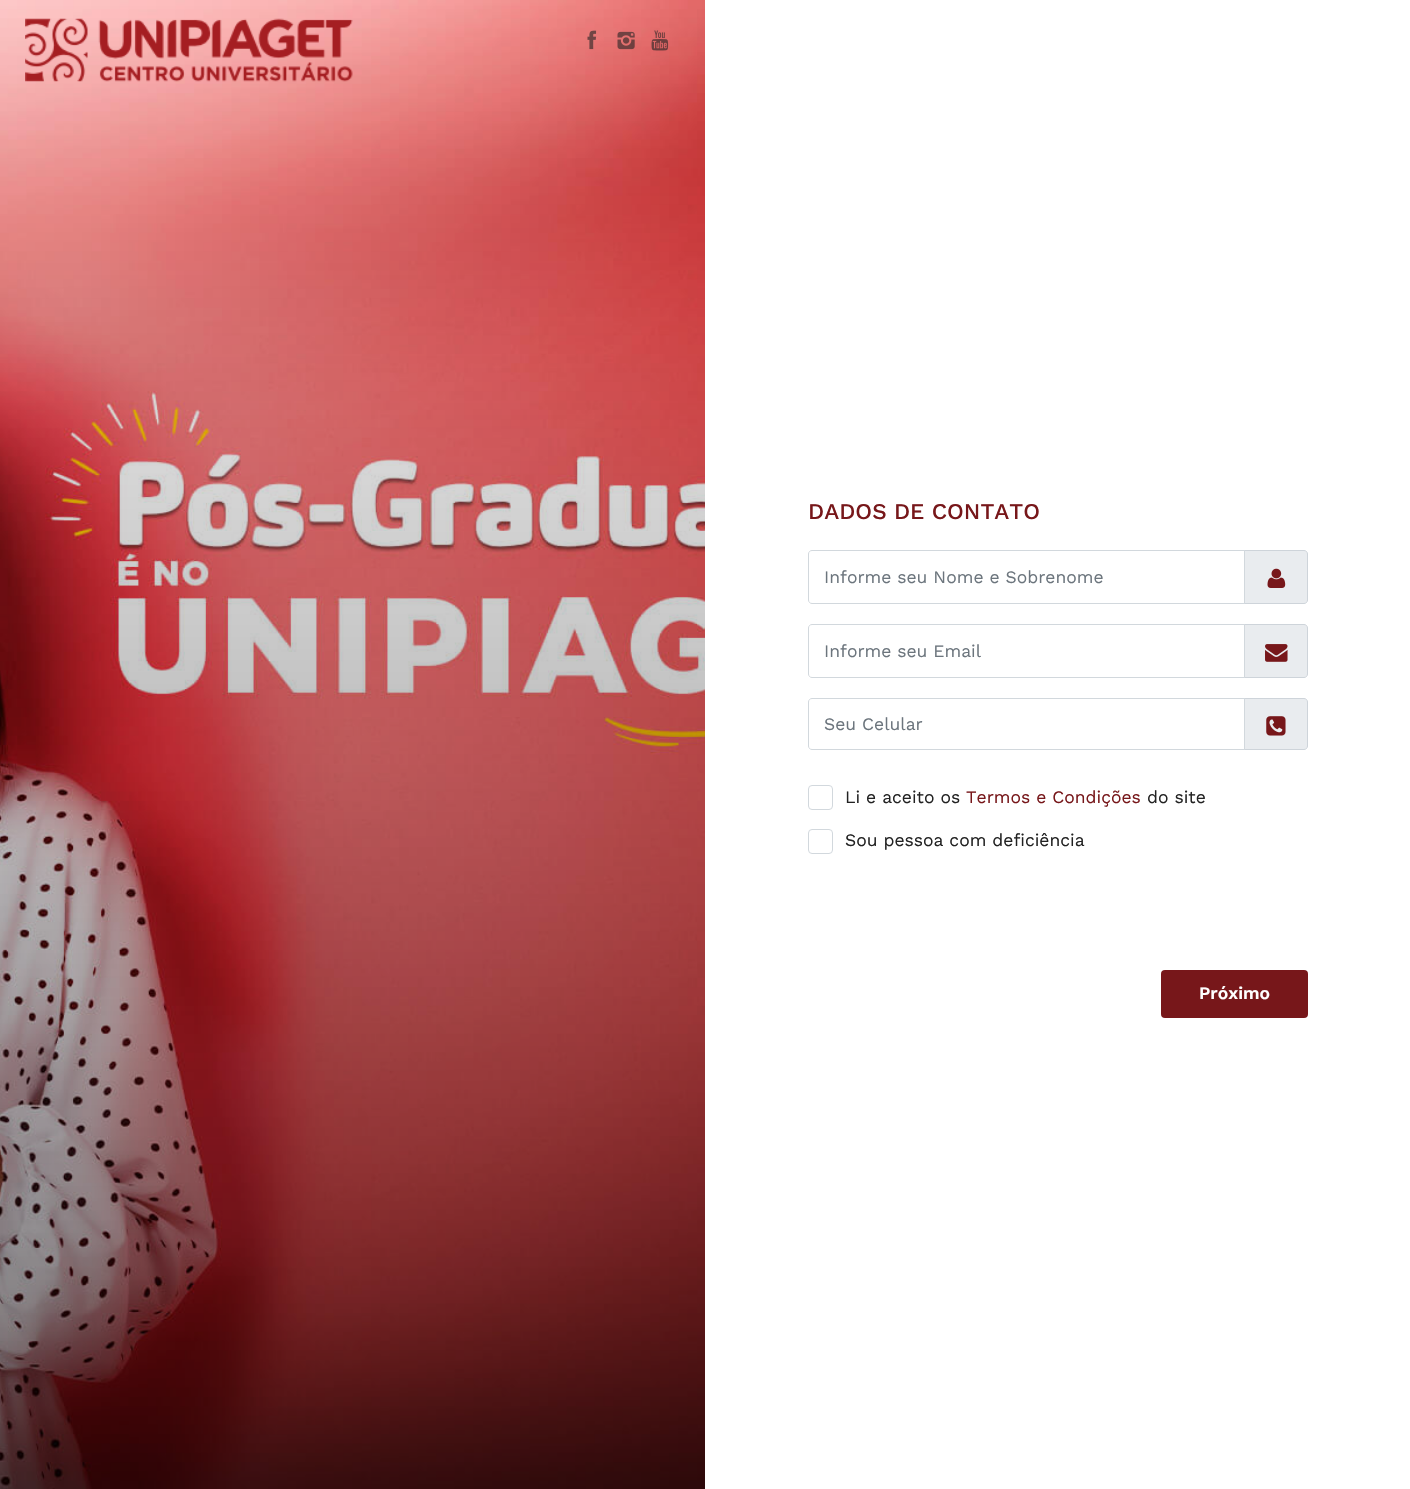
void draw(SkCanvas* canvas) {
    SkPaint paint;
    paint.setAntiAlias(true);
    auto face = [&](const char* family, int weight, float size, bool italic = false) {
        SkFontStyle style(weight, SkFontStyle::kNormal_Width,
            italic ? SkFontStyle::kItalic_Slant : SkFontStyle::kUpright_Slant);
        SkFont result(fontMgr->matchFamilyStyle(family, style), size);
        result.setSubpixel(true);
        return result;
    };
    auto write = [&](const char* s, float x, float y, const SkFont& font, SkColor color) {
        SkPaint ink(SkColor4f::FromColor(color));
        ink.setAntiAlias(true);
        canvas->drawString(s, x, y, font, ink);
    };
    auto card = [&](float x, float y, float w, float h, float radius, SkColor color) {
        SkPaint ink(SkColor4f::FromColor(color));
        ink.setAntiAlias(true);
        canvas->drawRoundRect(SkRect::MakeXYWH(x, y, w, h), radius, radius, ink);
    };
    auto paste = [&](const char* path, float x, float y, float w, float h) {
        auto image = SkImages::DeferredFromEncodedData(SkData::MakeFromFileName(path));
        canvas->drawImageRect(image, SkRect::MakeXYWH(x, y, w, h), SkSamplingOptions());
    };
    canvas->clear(SK_ColorWHITE);
    paste("pic1.png", 0, 0, 705, 1489);
    paste("pic2.png", 25, 18, 328, 64);
    paste("pic3.png", 587, 30, 10, 20);
    paste("pic4.png", 617, 31, 18, 19);
    paste("pic5.png", 651, 30, 18, 21);
    auto kFont1 = face("Work Sans", 500, 22.5f);
    write("DADOS DE CONTATO", 808, 519, kFont1, SkColorSetRGB(119, 23, 26));
    paint.setColor(SkColorSetRGB(233, 236, 239));
    canvas->drawPath(SkPathBuilder().moveTo(1244.5f, 550.5f).lineTo(1304, 550.5f).cubicTo(1306, 550.5f, 1307.5f, 552, 1307.5f, 554).lineTo(1307.5f, 600).cubicTo(1307.5f, 602, 1306, 603.5f, 1304, 603.5f).lineTo(1244.5f, 603.5f).close().detach(), paint);
    paint.setStyle(SkPaint::kStroke_Style);
    paint.setStrokeWidth(1);
    paint.setColor(SkColorSetRGB(206, 212, 218));
    canvas->drawPath(SkPathBuilder().moveTo(1244.5f, 550.5f).lineTo(1304, 550.5f).cubicTo(1306, 550.5f, 1307.5f, 552, 1307.5f, 554).lineTo(1307.5f, 600).cubicTo(1307.5f, 602, 1306, 603.5f, 1304, 603.5f).lineTo(1244.5f, 603.5f).close().detach(), paint);
    paint.setColor(SkColorSetRGB(210, 216, 221));
    canvas->drawPath(SkPathBuilder().moveTo(812, 550.5f).lineTo(1244.5f, 550.5f).lineTo(1244.5f, 603.5f).lineTo(812, 603.5f).cubicTo(810, 603.5f, 808.5f, 602, 808.5f, 600).lineTo(808.5f, 554).cubicTo(808.5f, 552, 810, 550.5f, 812, 550.5f).close().detach(), paint);
    auto kFont2 = face("Work Sans", 400, 17.5f);
    write("Informe seu Nome e Sobrenome", 824, 583, kFont2, SkColorSetRGB(108, 117, 125));
    paste("pic6.png", 1267, 568, 19, 20);
    paint.setStyle(SkPaint::kFill_Style);
    paint.setColor(SkColorSetRGB(233, 236, 239));
    canvas->drawPath(SkPathBuilder().moveTo(1244.5f, 624.5f).lineTo(1304, 624.5f).cubicTo(1306, 624.5f, 1307.5f, 626, 1307.5f, 628).lineTo(1307.5f, 674).cubicTo(1307.5f, 676, 1306, 677.5f, 1304, 677.5f).lineTo(1244.5f, 677.5f).close().detach(), paint);
    paint.setStyle(SkPaint::kStroke_Style);
    paint.setColor(SkColorSetRGB(206, 212, 218));
    canvas->drawPath(SkPathBuilder().moveTo(1244.5f, 624.5f).lineTo(1304, 624.5f).cubicTo(1306, 624.5f, 1307.5f, 626, 1307.5f, 628).lineTo(1307.5f, 674).cubicTo(1307.5f, 676, 1306, 677.5f, 1304, 677.5f).lineTo(1244.5f, 677.5f).close().detach(), paint);
    paint.setColor(SkColorSetRGB(210, 216, 221));
    canvas->drawPath(SkPathBuilder().moveTo(812, 624.5f).lineTo(1244.5f, 624.5f).lineTo(1244.5f, 677.5f).lineTo(812, 677.5f).cubicTo(810, 677.5f, 808.5f, 676, 808.5f, 674).lineTo(808.5f, 628).cubicTo(808.5f, 626, 810, 624.5f, 812, 624.5f).close().detach(), paint);
    write("Informe seu Email", 824, 657, kFont2, SkColorSetRGB(108, 117, 125));
    paste("pic7.png", 1265, 644, 23, 18);
    paint.setStyle(SkPaint::kFill_Style);
    paint.setColor(SkColorSetRGB(233, 236, 239));
    canvas->drawPath(SkPathBuilder().moveTo(1244.5f, 698.5f).lineTo(1304, 698.5f).cubicTo(1306, 698.5f, 1307.5f, 700, 1307.5f, 702).lineTo(1307.5f, 746).cubicTo(1307.5f, 748, 1306, 749.5f, 1304, 749.5f).lineTo(1244.5f, 749.5f).close().detach(), paint);
    paint.setStyle(SkPaint::kStroke_Style);
    paint.setColor(SkColorSetRGB(206, 212, 218));
    canvas->drawPath(SkPathBuilder().moveTo(1244.5f, 698.5f).lineTo(1304, 698.5f).cubicTo(1306, 698.5f, 1307.5f, 700, 1307.5f, 702).lineTo(1307.5f, 746).cubicTo(1307.5f, 748, 1306, 749.5f, 1304, 749.5f).lineTo(1244.5f, 749.5f).close().detach(), paint);
    paint.setColor(SkColorSetRGB(210, 216, 221));
    canvas->drawPath(SkPathBuilder().moveTo(812, 698.5f).lineTo(1244.5f, 698.5f).lineTo(1244.5f, 749.5f).lineTo(812, 749.5f).cubicTo(810, 749.5f, 808.5f, 748, 808.5f, 746).lineTo(808.5f, 702).cubicTo(808.5f, 700, 810, 698.5f, 812, 698.5f).close().detach(), paint);
    write("Seu Celular", 824, 730, kFont2, SkColorSetRGB(108, 117, 125));
    paste("pic8.png", 1266, 716, 20, 20);
    canvas->drawRoundRect(SkRect::MakeXYWH(808.5f, 785.5f, 24, 24), 3.5f, 3.5f, paint);
    write("Li e aceito os", 845, 803, kFont2, SkColorSetRGB(34, 34, 34));
    write("Termos e Condições", 966, 803, kFont2, SkColorSetRGB(119, 23, 26));
    write("do site", 1147, 803, kFont2, SkColorSetRGB(34, 34, 34));
    canvas->drawRoundRect(SkRect::MakeXYWH(808.5f, 829.5f, 24, 24), 3.5f, 3.5f, paint);
    write("Sou pessoa com deficiência", 845, 846, kFont2, SkColorSetRGB(34, 34, 34));
    card(1161, 970, 147, 48, 4, SkColorSetRGB(119, 23, 26));
    auto kFont3 = face("Work Sans", 600, 17.5f);
    write("Próximo", 1199, 999, kFont3, SK_ColorWHITE);
}
